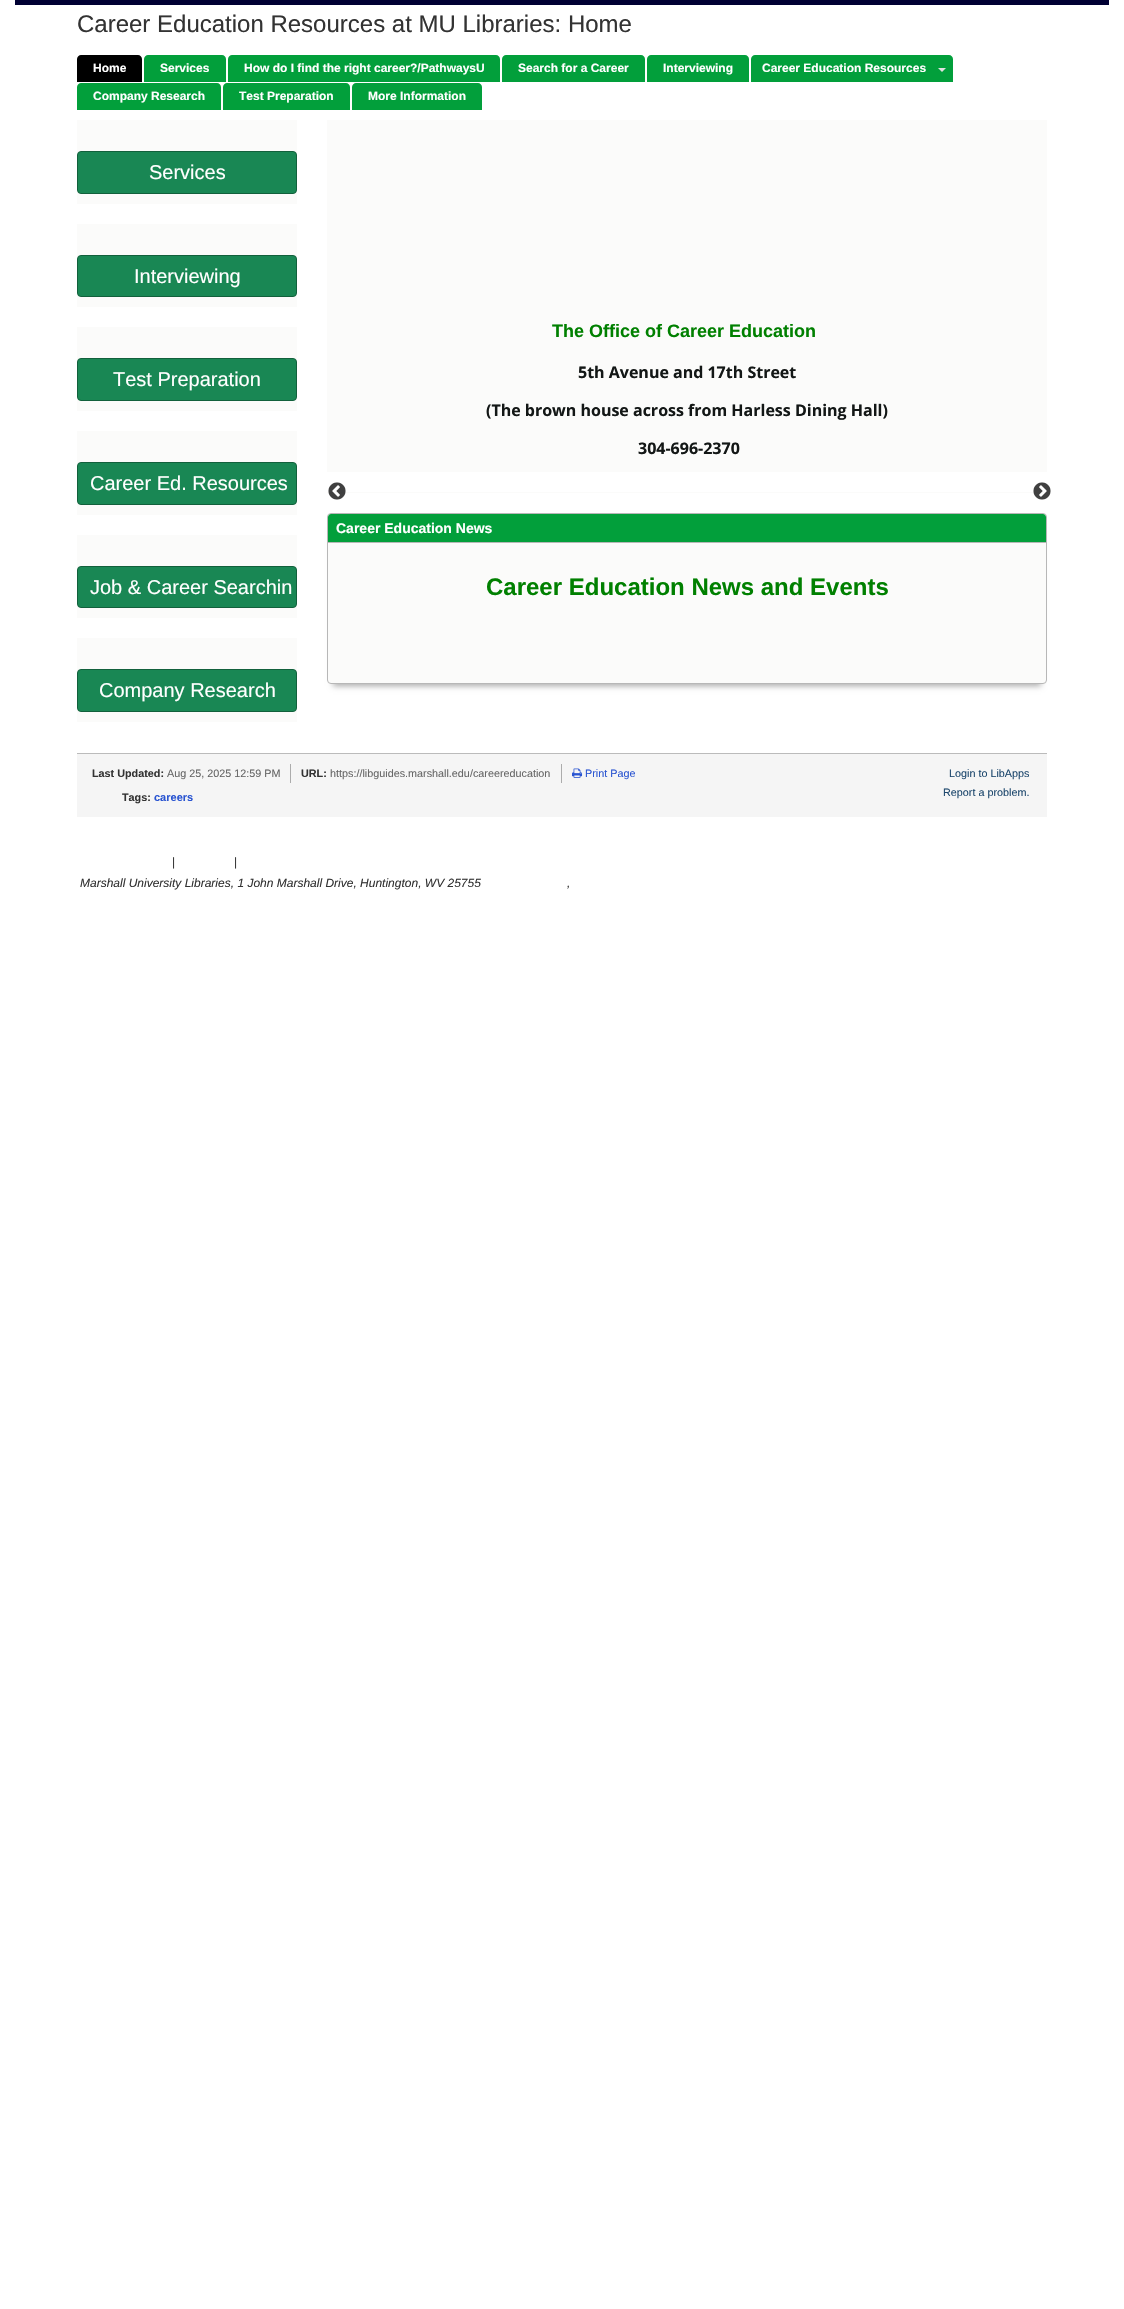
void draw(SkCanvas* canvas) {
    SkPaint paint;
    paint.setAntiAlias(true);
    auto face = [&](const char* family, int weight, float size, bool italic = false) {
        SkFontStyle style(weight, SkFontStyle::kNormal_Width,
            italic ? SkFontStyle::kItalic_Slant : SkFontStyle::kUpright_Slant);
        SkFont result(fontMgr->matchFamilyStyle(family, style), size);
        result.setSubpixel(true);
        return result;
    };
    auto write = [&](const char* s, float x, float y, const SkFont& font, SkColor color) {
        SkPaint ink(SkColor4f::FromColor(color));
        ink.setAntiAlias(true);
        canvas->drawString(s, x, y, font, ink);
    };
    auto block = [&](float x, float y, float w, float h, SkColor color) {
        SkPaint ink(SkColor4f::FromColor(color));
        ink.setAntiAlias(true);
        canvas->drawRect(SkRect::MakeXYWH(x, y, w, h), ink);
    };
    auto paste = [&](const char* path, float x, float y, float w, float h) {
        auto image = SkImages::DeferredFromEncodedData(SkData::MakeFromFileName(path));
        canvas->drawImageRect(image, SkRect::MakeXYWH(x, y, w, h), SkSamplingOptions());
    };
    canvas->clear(SK_ColorWHITE);
    block(15, 0, 1094, 5, SkColorSetRGB(0, 0, 51));
    auto kFont1 = face("Liberation Sans", 400, 24);
    write("Career Education Resources at MU Libraries: Home", 77, 32, kFont1, SkColorSetRGB(51, 51, 51));
    paint.setColor(SK_ColorBLACK);
    canvas->drawPath(SkPathBuilder().moveTo(81, 55).lineTo(138, 55).cubicTo(140, 55, 142, 57, 142, 59).lineTo(142, 82).lineTo(77, 82).lineTo(77, 59).cubicTo(77, 57, 79, 55, 81, 55).close().detach(), paint);
    auto kFont2 = face("Liberation Sans", 700, 12);
    write("Home", 93, 72, kFont2, SK_ColorWHITE);
    paint.setColor(SkColorSetRGB(2, 159, 59));
    canvas->drawPath(SkPathBuilder().moveTo(148, 55).lineTo(222, 55).cubicTo(224, 55, 226, 57, 226, 59).lineTo(226, 82).lineTo(144, 82).lineTo(144, 59).cubicTo(144, 57, 146, 55, 148, 55).close().detach(), paint);
    write("Services", 160, 72, kFont2, SK_ColorWHITE);
    canvas->drawPath(SkPathBuilder().moveTo(232, 55).lineTo(496, 55).cubicTo(498, 55, 500, 57, 500, 59).lineTo(500, 82).lineTo(228, 82).lineTo(228, 59).cubicTo(228, 57, 230, 55, 232, 55).close().detach(), paint);
    write("How do I find the right career?/PathwaysU", 244, 72, kFont2, SK_ColorWHITE);
    canvas->drawPath(SkPathBuilder().moveTo(506, 55).lineTo(641, 55).cubicTo(643, 55, 645, 57, 645, 59).lineTo(645, 82).lineTo(502, 82).lineTo(502, 59).cubicTo(502, 57, 504, 55, 506, 55).close().detach(), paint);
    write("Search for a Career", 518, 72, kFont2, SK_ColorWHITE);
    canvas->drawPath(SkPathBuilder().moveTo(651, 55).lineTo(745, 55).cubicTo(747, 55, 749, 57, 749, 59).lineTo(749, 82).lineTo(647, 82).lineTo(647, 59).cubicTo(647, 57, 649, 55, 651, 55).close().detach(), paint);
    write("Interviewing", 663, 72, kFont2, SK_ColorWHITE);
    canvas->drawPath(SkPathBuilder().moveTo(755, 55).lineTo(932, 55).lineTo(932, 82).lineTo(751, 82).lineTo(751, 59).cubicTo(751, 57, 753, 55, 755, 55).close().detach(), paint);
    write("Career Education Resources", 762, 72, kFont2, SK_ColorWHITE);
    canvas->drawPath(SkPathBuilder().moveTo(932, 55).lineTo(949, 55).cubicTo(951, 55, 953, 57, 953, 59).lineTo(953, 82).lineTo(932, 82).close().detach(), paint);
    paint.setColor(SkColorSetRGB(225, 225, 225));
    canvas->drawPath(SkPathBuilder().moveTo(938, 68).lineTo(946, 68).lineTo(942, 72).close().detach(), paint);
    paint.setColor(SkColorSetRGB(2, 159, 59));
    canvas->drawPath(SkPathBuilder().moveTo(81, 83).lineTo(217, 83).cubicTo(219, 83, 221, 85, 221, 87).lineTo(221, 110).lineTo(77, 110).lineTo(77, 87).cubicTo(77, 85, 79, 83, 81, 83).close().detach(), paint);
    write("Company Research", 93, 100, kFont2, SK_ColorWHITE);
    canvas->drawPath(SkPathBuilder().moveTo(227, 83).lineTo(346, 83).cubicTo(348, 83, 350, 85, 350, 87).lineTo(350, 110).lineTo(223, 110).lineTo(223, 87).cubicTo(223, 85, 225, 83, 227, 83).close().detach(), paint);
    write("Test Preparation", 239, 100, kFont2, SK_ColorWHITE);
    canvas->drawPath(SkPathBuilder().moveTo(356, 83).lineTo(478, 83).cubicTo(480, 83, 482, 85, 482, 87).lineTo(482, 110).lineTo(352, 110).lineTo(352, 87).cubicTo(352, 85, 354, 83, 356, 83).close().detach(), paint);
    write("More Information", 368, 100, kFont2, SK_ColorWHITE);
    block(77, 120, 220, 84, SkColorSetRGB(251, 251, 250));
    paint.setColor(SkColorSetRGB(25, 135, 84));
    canvas->drawRoundRect(SkRect::MakeXYWH(77.5f, 151.5f, 219, 42), 3.5f, 3.5f, paint);
    paint.setStyle(SkPaint::kStroke_Style);
    paint.setStrokeWidth(1);
    paint.setColor(SkColorSetRGB(18, 96, 60));
    canvas->drawRoundRect(SkRect::MakeXYWH(77.5f, 151.5f, 219, 42), 3.5f, 3.5f, paint);
    auto kFont3 = face("Liberation Sans", 400, 20);
    write("Services", 149, 179, kFont3, SK_ColorWHITE);
    block(77, 224, 220, 83, SkColorSetRGB(251, 251, 250));
    paint.setStyle(SkPaint::kFill_Style);
    paint.setColor(SkColorSetRGB(25, 135, 84));
    canvas->drawRoundRect(SkRect::MakeXYWH(77.5f, 255.5f, 219, 41), 3.5f, 3.5f, paint);
    paint.setStyle(SkPaint::kStroke_Style);
    paint.setColor(SkColorSetRGB(18, 96, 60));
    canvas->drawRoundRect(SkRect::MakeXYWH(77.5f, 255.5f, 219, 41), 3.5f, 3.5f, paint);
    write("Interviewing", 134, 283, kFont3, SK_ColorWHITE);
    block(77, 327, 220, 84, SkColorSetRGB(251, 251, 250));
    paint.setStyle(SkPaint::kFill_Style);
    paint.setColor(SkColorSetRGB(25, 135, 84));
    canvas->drawRoundRect(SkRect::MakeXYWH(77.5f, 358.5f, 219, 42), 3.5f, 3.5f, paint);
    paint.setStyle(SkPaint::kStroke_Style);
    paint.setColor(SkColorSetRGB(18, 96, 60));
    canvas->drawRoundRect(SkRect::MakeXYWH(77.5f, 358.5f, 219, 42), 3.5f, 3.5f, paint);
    write("Test Preparation", 113, 386, kFont3, SK_ColorWHITE);
    block(77, 431, 220, 84, SkColorSetRGB(251, 251, 250));
    paint.setStyle(SkPaint::kFill_Style);
    paint.setColor(SkColorSetRGB(25, 135, 84));
    canvas->drawRoundRect(SkRect::MakeXYWH(77.5f, 462.5f, 219, 42), 3.5f, 3.5f, paint);
    paint.setStyle(SkPaint::kStroke_Style);
    paint.setColor(SkColorSetRGB(18, 96, 60));
    canvas->drawRoundRect(SkRect::MakeXYWH(77.5f, 462.5f, 219, 42), 3.5f, 3.5f, paint);
    write("Career Ed. Resources", 90, 490, kFont3, SK_ColorWHITE);
    block(77, 535, 220, 83, SkColorSetRGB(251, 251, 250));
    paint.setStyle(SkPaint::kFill_Style);
    paint.setColor(SkColorSetRGB(25, 135, 84));
    canvas->drawRoundRect(SkRect::MakeXYWH(77.5f, 566.5f, 219, 41), 3.5f, 3.5f, paint);
    paint.setStyle(SkPaint::kStroke_Style);
    paint.setColor(SkColorSetRGB(18, 96, 60));
    canvas->drawRoundRect(SkRect::MakeXYWH(77.5f, 566.5f, 219, 41), 3.5f, 3.5f, paint);
    write("Job & Career Searchin", 90, 594, kFont3, SK_ColorWHITE);
    block(77, 638, 220, 84, SkColorSetRGB(251, 251, 250));
    paint.setStyle(SkPaint::kFill_Style);
    paint.setColor(SkColorSetRGB(25, 135, 84));
    canvas->drawRoundRect(SkRect::MakeXYWH(77.5f, 669.5f, 219, 42), 3.5f, 3.5f, paint);
    paint.setStyle(SkPaint::kStroke_Style);
    paint.setColor(SkColorSetRGB(18, 96, 60));
    canvas->drawRoundRect(SkRect::MakeXYWH(77.5f, 669.5f, 219, 42), 3.5f, 3.5f, paint);
    write("Company Research", 99, 697, kFont3, SK_ColorWHITE);
    block(327, 120, 720, 352, SkColorSetRGB(251, 251, 250));
    auto kFont4 = face("Liberation Sans", 700, 18);
    write("The Office of Career Education", 552, 337, kFont4, SkColorSetRGB(0, 128, 0));
    auto kFont5 = face("Open Sans", 700, 16);
    write("5th Avenue and 17th Street", 578, 378, kFont5, SkColorSetRGB(19, 23, 22));
    write("(The brown house across from Harless Dining Hall)", 486, 416, kFont5, SkColorSetRGB(19, 23, 22));
    write("304-696-2370", 638, 454, kFont5, SkColorSetRGB(19, 23, 22));
    block(327, 492, 720, 1, SkColorSetRGB(251, 251, 250));
    paste("pic1.png", 328, 482, 18, 18);
    paste("pic2.png", 1033, 482, 18, 18);
    paint.setStyle(SkPaint::kFill_Style);
    paint.setColor(SkColorSetRGB(170, 170, 170));
    paint.setMaskFilter(SkMaskFilter::MakeBlur(kNormal_SkBlurStyle, 3));
    canvas->drawRect(SkRect::MakeXYWH(333, 527, 708, 159), paint);
    paint.setMaskFilter(nullptr);
    paint.setColor(SkColorSetRGB(251, 251, 250));
    canvas->drawRoundRect(SkRect::MakeXYWH(327.5f, 513.5f, 719, 170), 3.5f, 3.5f, paint);
    paint.setStyle(SkPaint::kStroke_Style);
    paint.setColor(SkColorSetRGB(183, 183, 183));
    canvas->drawRoundRect(SkRect::MakeXYWH(327.5f, 513.5f, 719, 170), 3.5f, 3.5f, paint);
    paint.setStyle(SkPaint::kFill_Style);
    paint.setColor(SkColorSetRGB(2, 159, 59));
    canvas->drawPath(SkPathBuilder().moveTo(331, 514).lineTo(1043, 514).cubicTo(1044.5f, 514, 1046, 515.5f, 1046, 517).lineTo(1046, 543).lineTo(328, 543).lineTo(328, 517).cubicTo(328, 515.5f, 329.5f, 514, 331, 514).close().detach(), paint);
    block(328, 542, 718, 1, SkColorSetRGB(183, 183, 183));
    auto kFont6 = face("Liberation Sans", 700, 14);
    write("Career Education News", 336, 533, kFont6, SK_ColorWHITE);
    auto kFont7 = face("Liberation Sans", 700, 24);
    write("Career Education News and Events", 486, 595, kFont7, SkColorSetRGB(0, 128, 0));
    block(77, 754, 970, 63, SkColorSetRGB(245, 245, 245));
    block(77, 753, 970, 1, SkColorSetRGB(187, 187, 187));
    block(290, 764, 1, 19, SkColorSetRGB(172, 172, 172));
    auto kFont8 = face("Liberation Sans", 700, 10.8f);
    write("Last Updated:", 92, 777, kFont8, SkColorSetRGB(51, 51, 51));
    auto kFont9 = face("Liberation Sans", 400, 10.8f);
    write("Aug 25, 2025 12:59 PM", 167, 777, kFont9, SkColorSetRGB(102, 102, 102));
    block(561, 764, 1, 19, SkColorSetRGB(172, 172, 172));
    write("URL:", 301, 777, kFont8, SkColorSetRGB(51, 51, 51));
    write("https://libguides.marshall.edu/careereducation", 330, 777, kFont9, SkColorSetRGB(102, 102, 102));
    paste("pic3.png", 572, 768, 11, 10);
    write("Print Page", 585, 777, kFont9, SkColorSetRGB(41, 84, 209));
    write("Login to LibApps", 949, 777, kFont9, SkColorSetRGB(31, 73, 110));
    write("Tags:", 122, 801, kFont8, SkColorSetRGB(51, 51, 51));
    auto kFont10 = face("Liberation Sans", 700, 11);
    write("careers", 154, 801, kFont10, SkColorSetRGB(41, 84, 209));
    write("Report a problem.", 943, 796, kFont9, SkColorSetRGB(31, 73, 110));
    auto kFont11 = face("Liberation Sans", 400, 12);
    write("|", 172, 866, kFont11, SkColorSetRGB(51, 51, 51));
    write("|", 234, 866, kFont11, SkColorSetRGB(51, 51, 51));
    auto kFont12 = face("Liberation Sans", 400, 12, true);
    write("Marshall University Libraries, 1 John Marshall Drive, Huntington, WV 25755", 80, 887, kFont12, SkColorSetRGB(51, 51, 51));
    write(",", 567, 887, kFont12, SkColorSetRGB(51, 51, 51));
}
